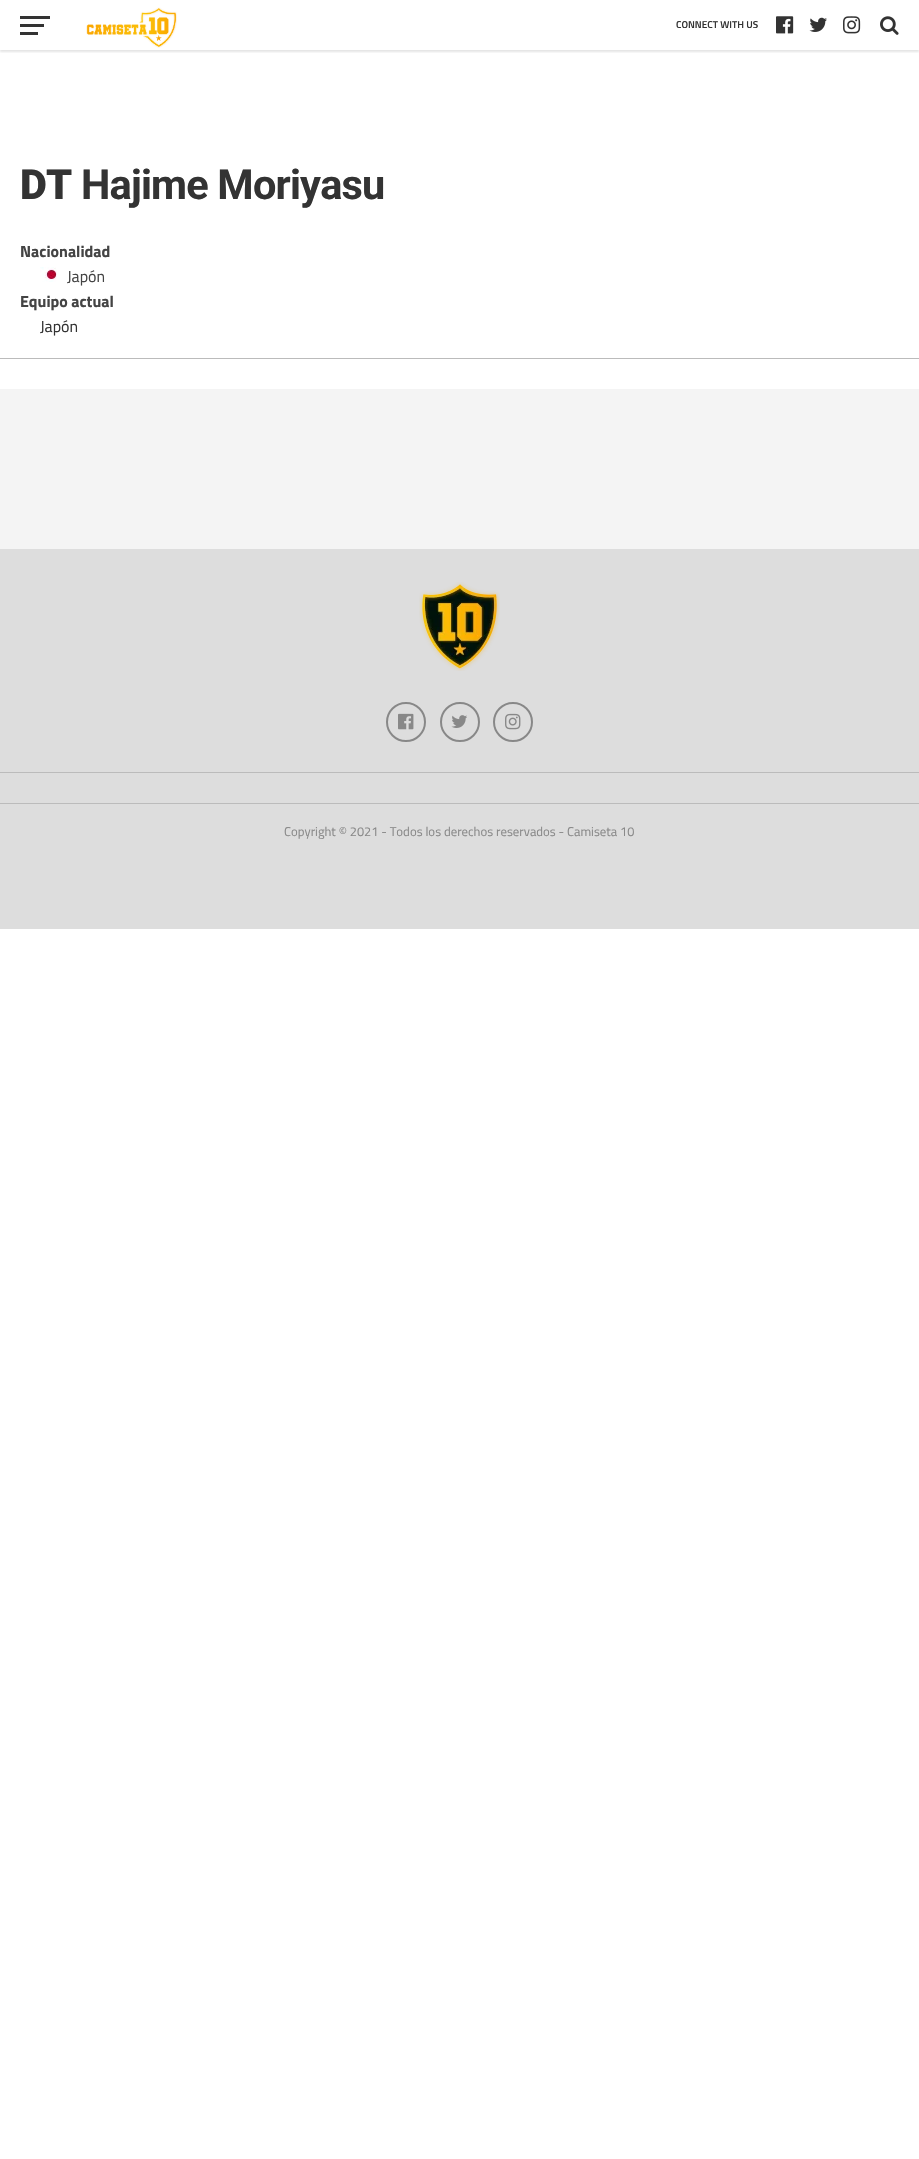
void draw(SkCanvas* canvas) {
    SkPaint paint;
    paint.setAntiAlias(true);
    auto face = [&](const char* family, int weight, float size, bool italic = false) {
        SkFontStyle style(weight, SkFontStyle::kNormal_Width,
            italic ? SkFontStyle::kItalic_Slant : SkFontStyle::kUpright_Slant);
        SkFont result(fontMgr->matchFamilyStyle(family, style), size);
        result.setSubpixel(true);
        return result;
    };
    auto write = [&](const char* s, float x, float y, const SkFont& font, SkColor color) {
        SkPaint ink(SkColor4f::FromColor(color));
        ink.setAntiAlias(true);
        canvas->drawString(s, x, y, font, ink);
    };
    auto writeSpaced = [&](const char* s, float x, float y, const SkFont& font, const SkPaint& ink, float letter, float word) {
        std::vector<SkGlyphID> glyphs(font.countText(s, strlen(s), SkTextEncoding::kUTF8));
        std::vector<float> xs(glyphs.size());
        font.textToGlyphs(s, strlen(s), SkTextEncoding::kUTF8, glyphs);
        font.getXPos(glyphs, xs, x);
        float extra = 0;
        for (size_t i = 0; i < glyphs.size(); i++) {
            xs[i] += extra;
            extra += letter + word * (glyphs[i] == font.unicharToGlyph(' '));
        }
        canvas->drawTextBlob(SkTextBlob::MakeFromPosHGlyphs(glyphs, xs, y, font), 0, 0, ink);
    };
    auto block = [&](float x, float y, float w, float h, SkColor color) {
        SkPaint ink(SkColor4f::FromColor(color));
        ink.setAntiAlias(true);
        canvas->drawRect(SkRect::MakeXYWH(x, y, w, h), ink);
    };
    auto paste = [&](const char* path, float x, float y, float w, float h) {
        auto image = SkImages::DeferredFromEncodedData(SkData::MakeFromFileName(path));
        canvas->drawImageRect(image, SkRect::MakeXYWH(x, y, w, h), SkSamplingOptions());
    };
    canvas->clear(SK_ColorWHITE);
    canvas->save();
    canvas->clipRect(SkRect::MakeXYWH(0, 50, 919, 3));
    paint.setColor(SkColorSetARGB(26, 0, 0, 0));
    paint.setMaskFilter(SkMaskFilter::MakeBlur(kNormal_SkBlurStyle, 1));
    canvas->drawRect(SkRect::MakeXYWH(0, 2, 919, 50), paint);
    paint.setMaskFilter(nullptr);
    canvas->restore();
    block(20, 16, 30, 3, SkColorSetRGB(51, 51, 51));
    block(20, 24, 24, 3, SkColorSetRGB(51, 51, 51));
    block(20, 32, 18, 3, SkColorSetRGB(51, 51, 51));
    paste("pic1.png", 86, 7, 91, 41);
    auto kFont1 = face("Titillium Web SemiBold", 600, 10);
    write("CONNECT WITH US", 676, 28, kFont1, SkColorSetRGB(51, 51, 51));
    paste("pic2.png", 776, 16, 18, 18);
    paste("pic3.png", 809, 17, 18, 15);
    paste("pic4.png", 843, 16, 18, 18);
    paste("pic5.png", 880, 16, 19, 19);
    block(0, 358, 919, 1, SkColorSetRGB(187, 187, 187));
    auto kFont2 = face("Roboto", 900, 41.5f);
    paint.setColor(SkColorSetRGB(51, 51, 51));
    writeSpaced("DT", 20, 199, kFont2, paint, -0.8f, 0);
    auto kFont3 = face("Roboto", 700, 41.5f);
    writeSpaced("Hajime Moriyasu", 81, 199, kFont3, paint, -0.8f, 0);
    auto kFont4 = face("Titillium Web", 700, 16);
    write("Nacionalidad", 20, 257, kFont4, SkColorSetRGB(68, 68, 68));
    paste("pic6.png", 40, 267, 17, 15);
    auto kFont5 = face("Titillium Web", 400, 16);
    write("Japón", 67, 282, kFont5, SkColorSetRGB(68, 68, 68));
    write("Equipo actual", 20, 307, kFont4, SkColorSetRGB(68, 68, 68));
    write("Japón", 40, 332, kFont5, SkColorSetRGB(51, 51, 51));
    block(0, 389, 919, 160, SkColorSetRGB(244, 244, 244));
    block(0, 549, 919, 380, SkColorSetRGB(221, 221, 221));
    paste("pic7.png", 419, 582, 81, 89);
    paint.setStyle(SkPaint::kStroke_Style);
    paint.setStrokeWidth(2);
    paint.setColor(SkColorSetRGB(136, 136, 136));
    canvas->drawCircle(406, 722, 19, paint);
    paste("pic8.png", 398, 713, 16, 17);
    canvas->drawCircle(460, 722, 19, paint);
    paste("pic9.png", 451, 715, 16, 13);
    canvas->drawCircle(513, 722, 19, paint);
    paste("pic10.png", 505, 713, 16, 17);
    block(0, 772, 919, 1, SkColorSetRGB(187, 187, 187));
    block(0, 803, 919, 1, SkColorSetRGB(187, 187, 187));
    auto kFont6 = face("Titillium Web", 400, 12.8f);
    write("Copyright © 2021 - Todos los derechos reservados - Camiseta 10", 284, 836, kFont6, SkColorSetRGB(136, 136, 136));
}
